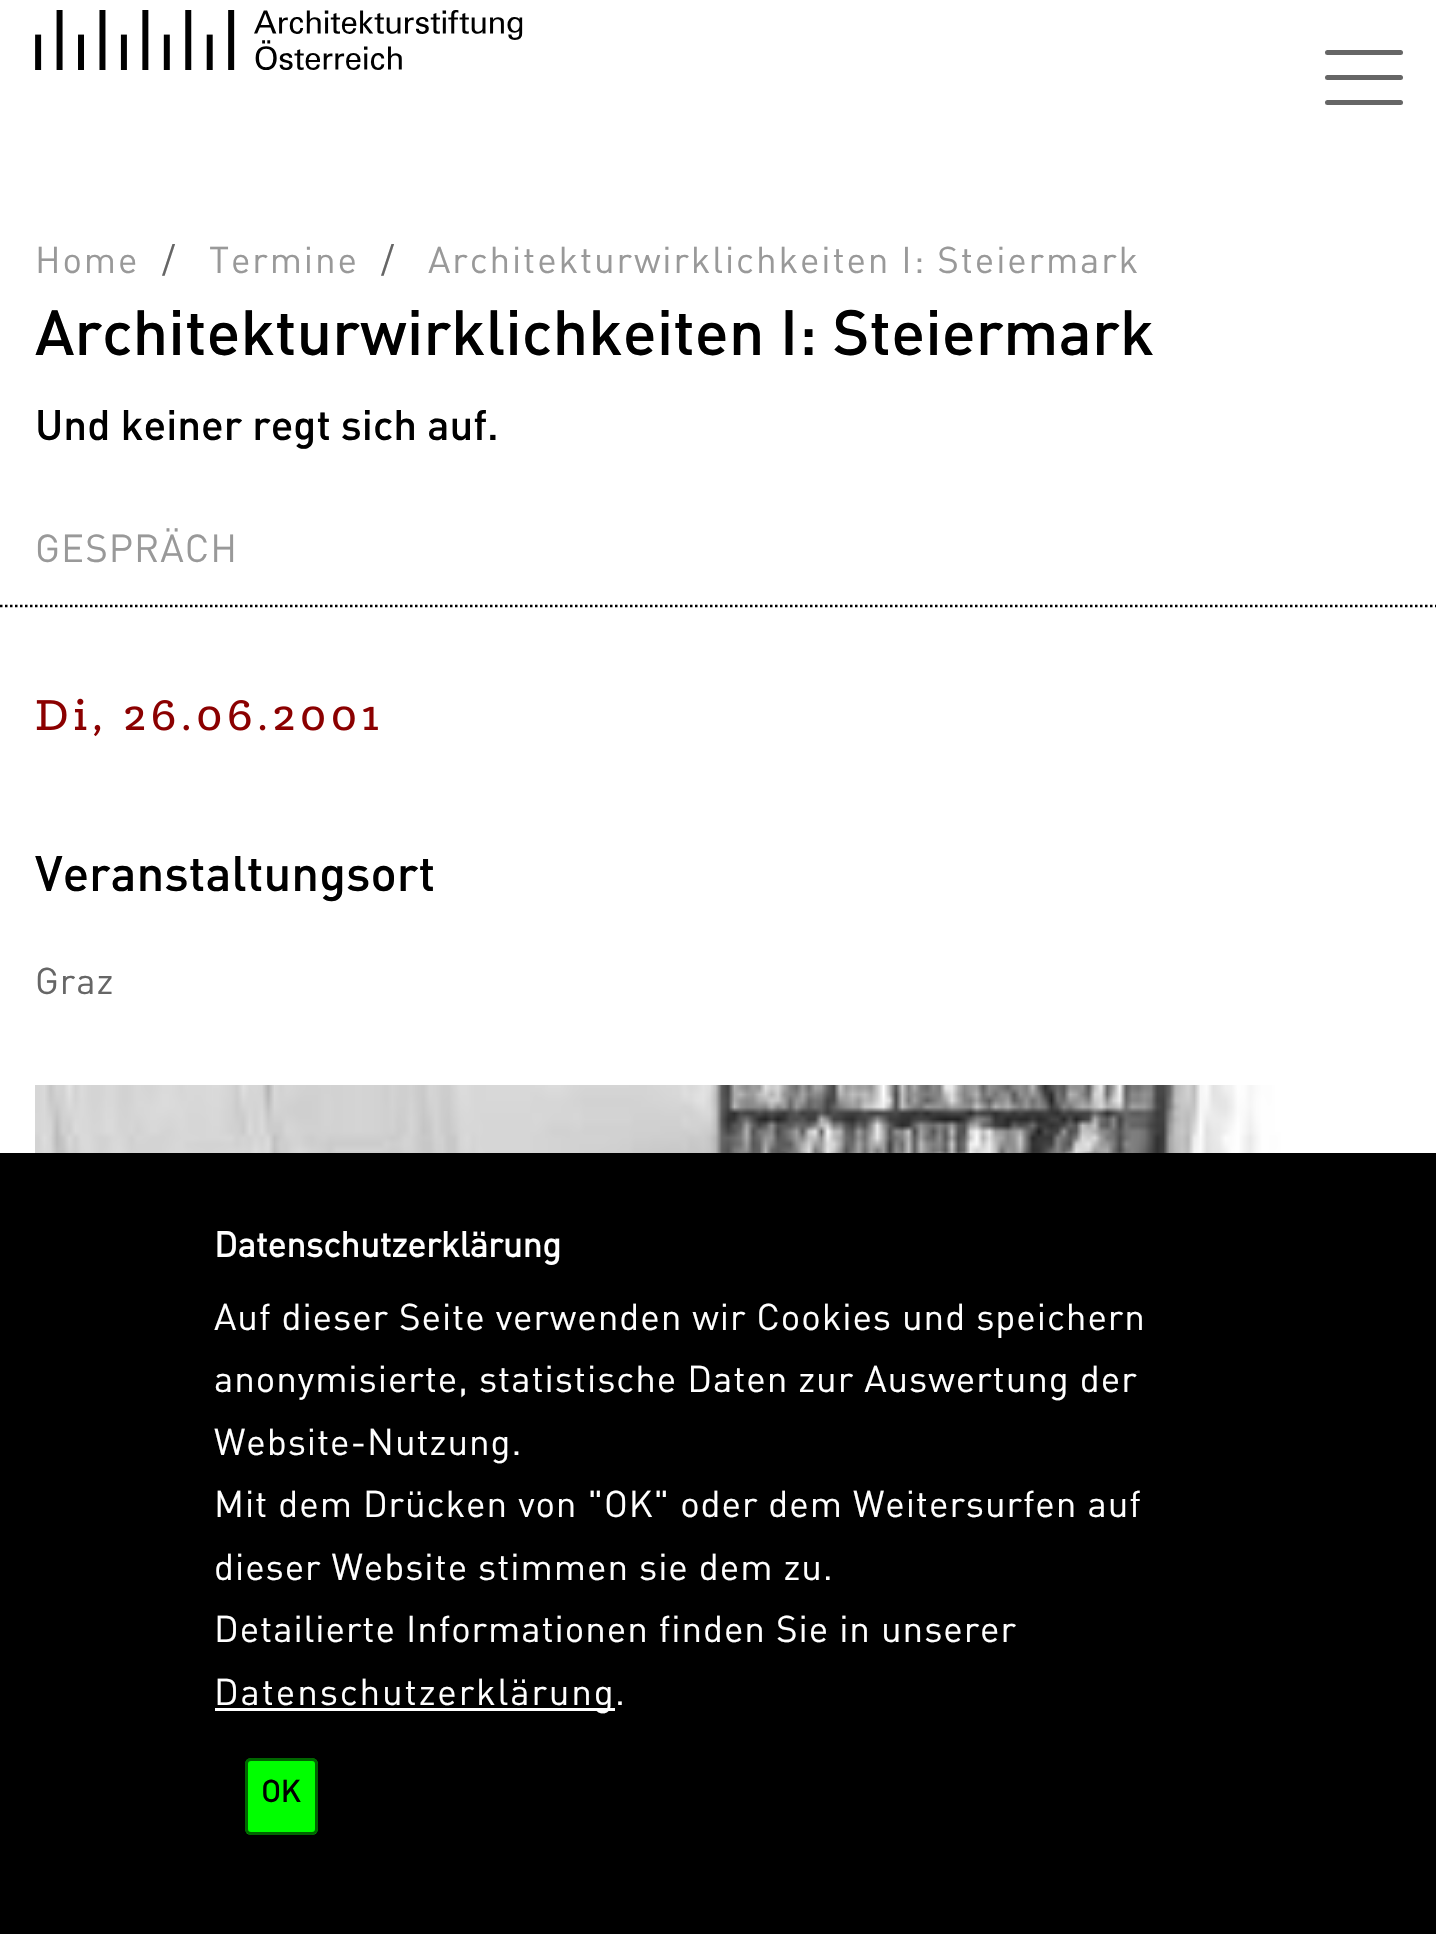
void draw(SkCanvas* canvas) {
    SkPaint paint;
    paint.setAntiAlias(true);
    auto face = [&](const char* family, int weight, float size, bool italic = false) {
        SkFontStyle style(weight, SkFontStyle::kNormal_Width,
            italic ? SkFontStyle::kItalic_Slant : SkFontStyle::kUpright_Slant);
        SkFont result(fontMgr->matchFamilyStyle(family, style), size);
        result.setSubpixel(true);
        return result;
    };
    auto write = [&](const char* s, float x, float y, const SkFont& font, SkColor color) {
        SkPaint ink(SkColor4f::FromColor(color));
        ink.setAntiAlias(true);
        canvas->drawString(s, x, y, font, ink);
    };
    auto writeSpaced = [&](const char* s, float x, float y, const SkFont& font, const SkPaint& ink, float letter, float word) {
        std::vector<SkGlyphID> glyphs(font.countText(s, strlen(s), SkTextEncoding::kUTF8));
        std::vector<float> xs(glyphs.size());
        font.textToGlyphs(s, strlen(s), SkTextEncoding::kUTF8, glyphs);
        font.getXPos(glyphs, xs, x);
        float extra = 0;
        for (size_t i = 0; i < glyphs.size(); i++) {
            xs[i] += extra;
            extra += letter + word * (glyphs[i] == font.unicharToGlyph(' '));
        }
        canvas->drawTextBlob(SkTextBlob::MakeFromPosHGlyphs(glyphs, xs, y, font), 0, 0, ink);
    };
    auto block = [&](float x, float y, float w, float h, SkColor color) {
        SkPaint ink(SkColor4f::FromColor(color));
        ink.setAntiAlias(true);
        canvas->drawRect(SkRect::MakeXYWH(x, y, w, h), ink);
    };
    auto card = [&](float x, float y, float w, float h, float radius, SkColor color) {
        SkPaint ink(SkColor4f::FromColor(color));
        ink.setAntiAlias(true);
        canvas->drawRoundRect(SkRect::MakeXYWH(x, y, w, h), radius, radius, ink);
    };
    auto paste = [&](const char* path, float x, float y, float w, float h) {
        auto image = SkImages::DeferredFromEncodedData(SkData::MakeFromFileName(path));
        canvas->drawImageRect(image, SkRect::MakeXYWH(x, y, w, h), SkSamplingOptions());
    };
    canvas->clear(SK_ColorWHITE);
    paste("pic1.png", 35, 10, 488, 60);
    card(1325, 75, 78, 5, 2.5f, SkColorSetRGB(102, 102, 102));
    card(1325, 50, 78, 5, 2.5f, SkColorSetRGB(102, 102, 102));
    card(1325, 100, 78, 5, 2.5f, SkColorSetRGB(102, 102, 102));
    auto kFont1 = face("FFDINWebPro", 400, 36.75f);
    paint.setColor(SkColorSetRGB(153, 153, 153));
    writeSpaced("Home", 35, 273, kFont1, paint, 1.85f, 0);
    paint.setColor(SkColorSetRGB(102, 102, 102));
    writeSpaced("/", 162, 273, kFont1, paint, 0.92f, 0);
    paint.setColor(SkColorSetRGB(153, 153, 153));
    writeSpaced("Termine", 209, 273, kFont1, paint, 1.85f, 0);
    paint.setColor(SkColorSetRGB(102, 102, 102));
    writeSpaced("/", 381, 273, kFont1, paint, 0.92f, 0);
    paint.setColor(SkColorSetRGB(153, 153, 153));
    writeSpaced("Architekturwirklichkeiten I: Steiermark", 428, 273, kFont1, paint, 1.85f, 0);
    paint.setStyle(SkPaint::kStroke_Style);
    paint.setStrokeWidth(2.5f);
    paint.setColor(SK_ColorBLACK);
    paint.setPathEffect(SkDashPathEffect::Make({{2.5f, 2.5f}}, 0));
    canvas->drawPath(SkPathBuilder().moveTo(0, 606).lineTo(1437.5f, 606).detach(), paint);
    paint.setPathEffect(nullptr);
    auto kFont2 = face("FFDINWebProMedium", 400, 63);
    write("Architekturwirklichkeiten I: Steiermark", 35, 355, kFont2, SK_ColorBLACK);
    auto kFont3 = face("FFDINWebProMedium", 400, 42);
    write("Und keiner regt sich auf.", 35, 440, kFont3, SK_ColorBLACK);
    auto kFont4 = face("FFDINWebPro", 400, 38.5f);
    paint.setStyle(SkPaint::kFill_Style);
    paint.setColor(SkColorSetRGB(153, 153, 153));
    writeSpaced("GESPRÄCH", 35, 562, kFont4, paint, 1, 0);
    paste("pic2.png", 36, 698, 342, 39);
    auto kFont5 = face("FFDINWebProMedium", 400, 49);
    write("Veranstaltungsort", 35, 891, kFont5, SK_ColorBLACK);
    paint.setColor(SkColorSetRGB(102, 102, 102));
    writeSpaced("Graz", 35, 994, kFont1, paint, 0.92f, 0);
    paste("pic3.png", 35, 1085, 1368, 68);
    block(0, 1153, 1436, 781, SK_ColorBLACK);
    auto kFont6 = face("FFDINWebPro", 700, 35);
    write("Datenschutzerklärung", 214, 1257, kFont6, SK_ColorWHITE);
    paint.setColor(SK_ColorWHITE);
    writeSpaced("Auf dieser Seite verwenden wir Cookies und speichern", 214, 1330, kFont1, paint, 0.92f, 0);
    writeSpaced("anonymisierte, statistische Daten zur Auswertung der", 214, 1392, kFont1, paint, 0.92f, 0);
    writeSpaced("Website-Nutzung.", 214, 1455, kFont1, paint, 0.92f, 0);
    writeSpaced("Mit dem Drücken von \"OK\" oder dem Weitersurfen auf", 214, 1517, kFont1, paint, 0.92f, 0);
    writeSpaced("dieser Website stimmen sie dem zu.", 214, 1580, kFont1, paint, 0.92f, 0);
    writeSpaced("Detailierte Informationen finden Sie in unserer", 214, 1642, kFont1, paint, 0.92f, 0);
    block(215, 1708, 400, 3, SK_ColorWHITE);
    writeSpaced("Datenschutzerklärung", 214, 1705, kFont1, paint, 1.85f, 0);
    writeSpaced(".", 615, 1705, kFont1, paint, 0.92f, 0);
    card(245, 1758, 73, 77, 6, SkColorSetRGB(0, 255, 0));
    paint.setStyle(SkPaint::kStroke_Style);
    paint.setStrokeWidth(3);
    paint.setColor(SkColorSetARGB(153, 0, 0, 0));
    canvas->drawRoundRect(SkRect::MakeXYWH(246.5f, 1759.5f, 70, 74), 4.5f, 4.5f, paint);
    auto kFont7 = face("FFDINWebPro", 700, 30);
    write("OK", 261, 1802, kFont7, SK_ColorBLACK);
}
